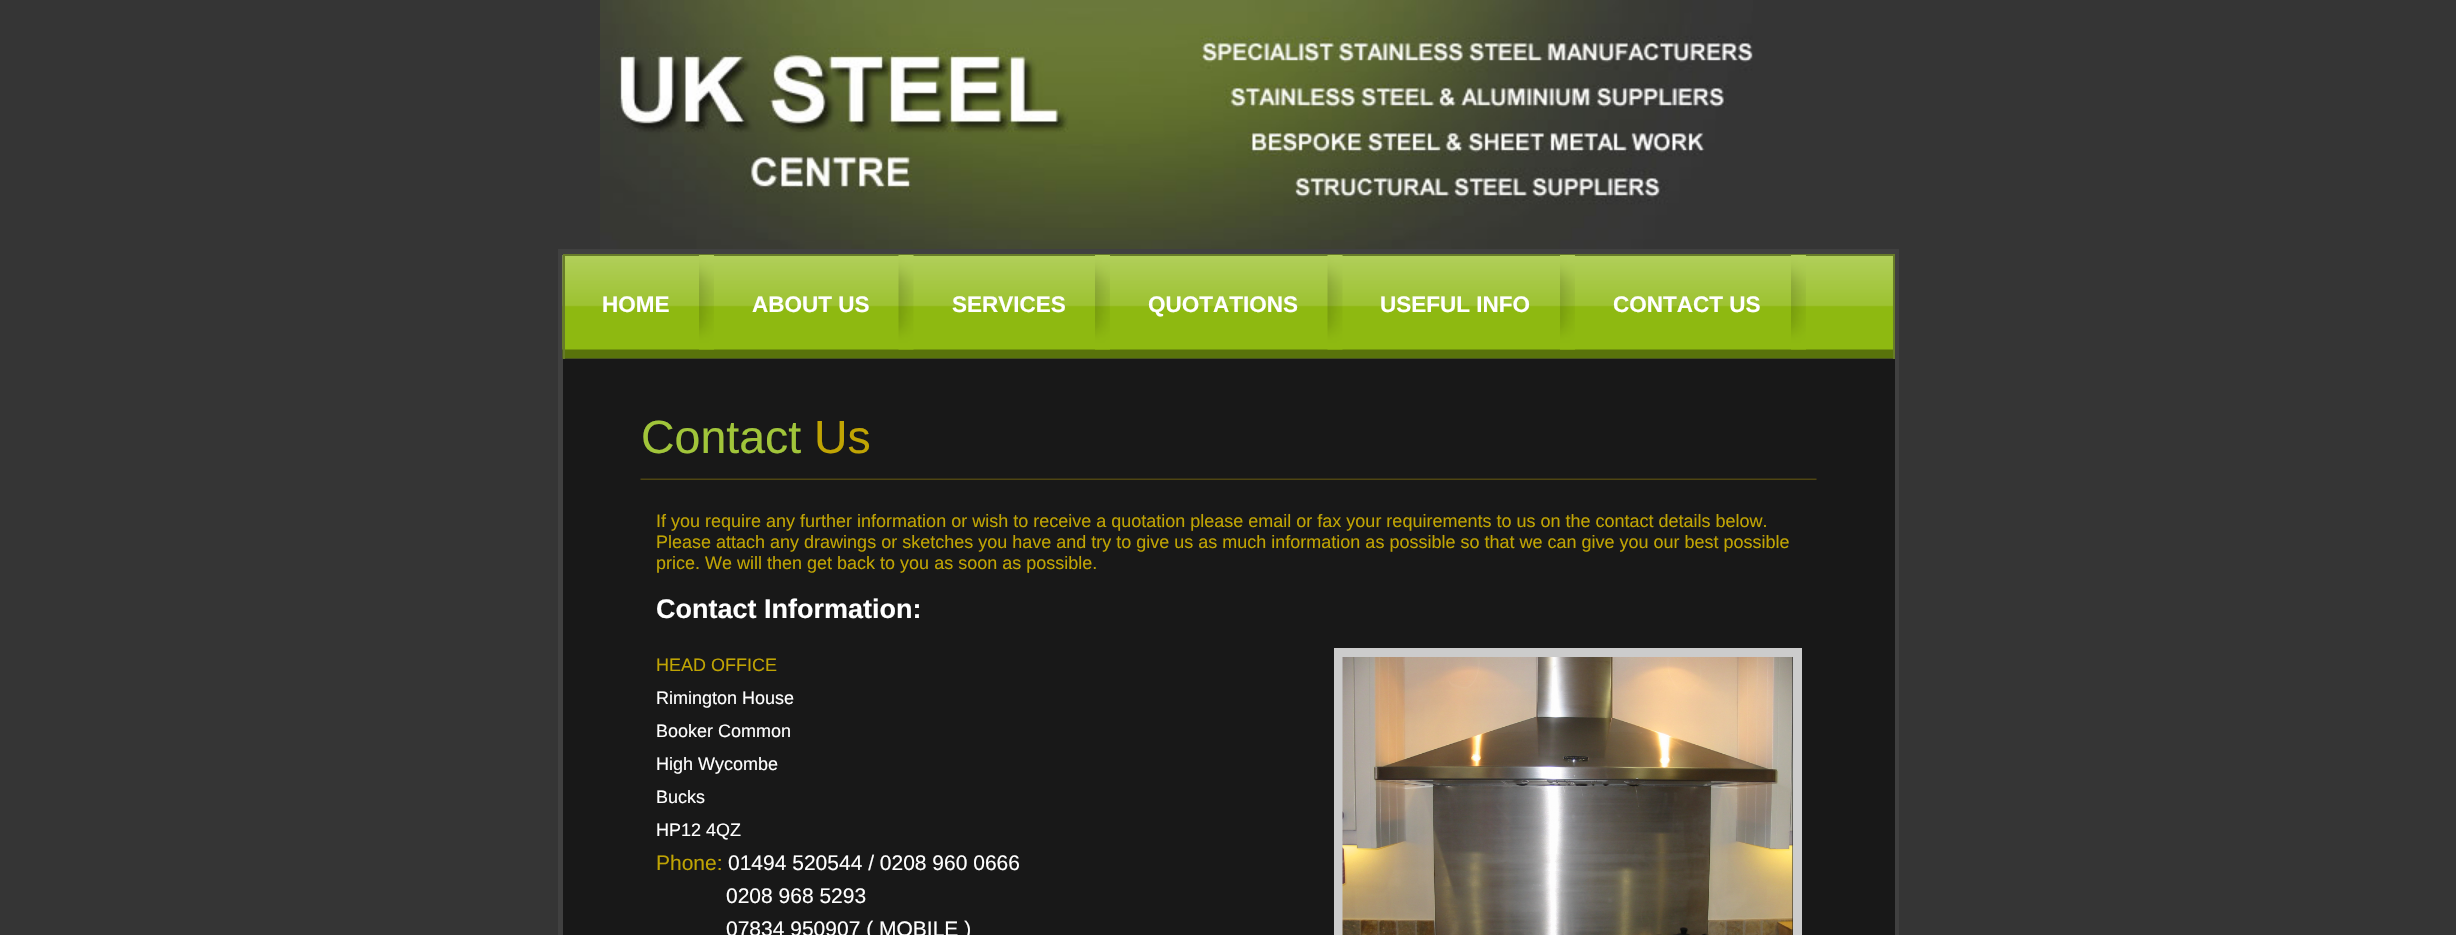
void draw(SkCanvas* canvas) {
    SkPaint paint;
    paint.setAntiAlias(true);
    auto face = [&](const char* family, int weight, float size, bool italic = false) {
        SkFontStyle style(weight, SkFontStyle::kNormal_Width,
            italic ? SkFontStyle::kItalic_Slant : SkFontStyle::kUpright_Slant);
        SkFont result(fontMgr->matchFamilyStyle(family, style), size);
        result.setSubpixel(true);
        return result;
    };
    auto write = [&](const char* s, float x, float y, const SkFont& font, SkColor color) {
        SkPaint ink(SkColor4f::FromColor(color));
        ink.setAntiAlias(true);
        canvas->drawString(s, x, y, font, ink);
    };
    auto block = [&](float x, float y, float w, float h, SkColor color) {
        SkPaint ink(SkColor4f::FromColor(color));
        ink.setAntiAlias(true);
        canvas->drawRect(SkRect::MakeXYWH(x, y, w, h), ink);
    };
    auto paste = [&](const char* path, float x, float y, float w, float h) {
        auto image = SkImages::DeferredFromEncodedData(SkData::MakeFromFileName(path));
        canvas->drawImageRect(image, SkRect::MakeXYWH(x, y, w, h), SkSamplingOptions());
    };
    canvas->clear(SkColorSetRGB(53, 53, 53));
    paste("pic1.png", 600, 0, 1153, 249);
    paint.setStyle(SkPaint::kStroke_Style);
    paint.setStrokeWidth(5);
    paint.setColor(SkColorSetRGB(64, 64, 64));
    canvas->drawRect(SkRect::MakeXYWH(560.5f, 251.5f, 1336, 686), paint);
    paste("pic2.png", 562, 255, 1331, 104);
    block(563, 254, 1332, 2, SkColorSetRGB(103, 124, 41));
    block(1893, 254, 2, 105, SkColorSetRGB(103, 124, 41));
    block(563, 254, 2, 105, SkColorSetRGB(103, 124, 41));
    paste("pic3.png", 699, 255, 15, 95);
    auto kFont1 = face("Liberation Sans", 700, 22.5f);
    write("HOME", 602, 312, kFont1, SK_ColorWHITE);
    paste("pic4.png", 898, 255, 16, 95);
    write("ABOUT US", 752, 312, kFont1, SK_ColorWHITE);
    paste("pic5.png", 1095, 255, 15, 95);
    write("SERVICES", 952, 312, kFont1, SK_ColorWHITE);
    paste("pic6.png", 1327, 255, 16, 95);
    write("QUOTATIONS", 1148, 312, kFont1, SK_ColorWHITE);
    paste("pic3.png", 1560, 255, 15, 95);
    write("USEFUL INFO", 1380, 312, kFont1, SK_ColorWHITE);
    paste("pic5.png", 1791, 255, 15, 95);
    write("CONTACT US", 1613, 312, kFont1, SK_ColorWHITE);
    block(563, 359, 1332, 576, SkColorSetRGB(24, 24, 24));
    paste("pic7.png", 640, 478, 1177, 2);
    auto kFont2 = face("Liberation Sans", 400, 46.5f);
    write("Contact", 641, 453, kFont2, SkColorSetRGB(161, 197, 58));
    write("Us", 814, 453, kFont2, SkColorSetRGB(192, 164, 3));
    auto kFont3 = face("Liberation Sans", 400, 18);
    write("If you require any further information or wish to receive a quotation please email or fax your requirements to us on the contact details below.", 656, 527, kFont3, SkColorSetRGB(192, 164, 3));
    write("Please attach any drawings or sketches you have and try to give us as much information as possible so that we can give you our best possible", 656, 548, kFont3, SkColorSetRGB(192, 164, 3));
    write("price. We will then get back to you as soon as possible.", 656, 569, kFont3, SkColorSetRGB(192, 164, 3));
    auto kFont4 = face("Liberation Sans", 700, 27);
    write("Contact Information:", 656, 618, kFont4, SK_ColorWHITE);
    write("HEAD OFFICE", 656, 671, kFont3, SkColorSetRGB(192, 164, 3));
    paint.setStrokeWidth(9);
    paint.setColor(SkColorSetRGB(204, 204, 204));
    canvas->drawRect(SkRect::MakeXYWH(1338.5f, 652.5f, 459, 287), paint);
    paste("pic8.png", 1342, 657, 451, 278);
    write("Rimington House", 656, 704, kFont3, SK_ColorWHITE);
    write("Booker Common", 656, 737, kFont3, SK_ColorWHITE);
    write("High Wycombe", 656, 770, kFont3, SK_ColorWHITE);
    write("Bucks", 656, 803, kFont3, SK_ColorWHITE);
    write("HP12 4QZ", 656, 836, kFont3, SK_ColorWHITE);
    auto kFont5 = face("Liberation Sans", 400, 21);
    write("Phone:", 656, 870, kFont5, SkColorSetRGB(192, 164, 3));
    write("01494 520544 / 0208 960 0666", 728, 870, kFont5, SK_ColorWHITE);
    write("0208 968 5293", 726, 903, kFont5, SK_ColorWHITE);
    write("07834 950907 ( MOBILE )", 726, 936, kFont5, SK_ColorWHITE);
}
